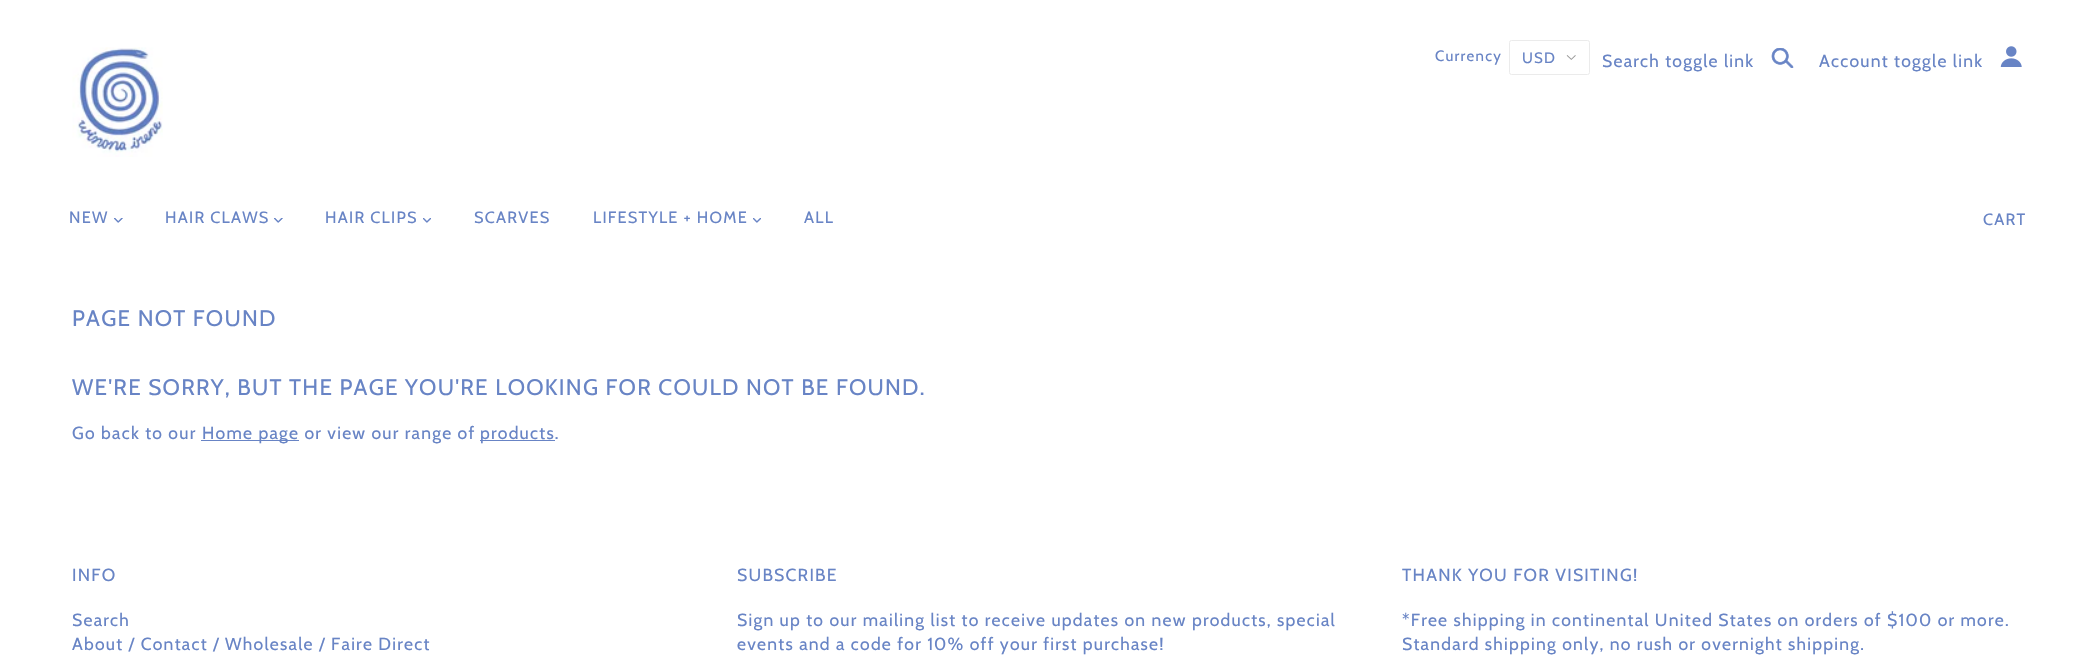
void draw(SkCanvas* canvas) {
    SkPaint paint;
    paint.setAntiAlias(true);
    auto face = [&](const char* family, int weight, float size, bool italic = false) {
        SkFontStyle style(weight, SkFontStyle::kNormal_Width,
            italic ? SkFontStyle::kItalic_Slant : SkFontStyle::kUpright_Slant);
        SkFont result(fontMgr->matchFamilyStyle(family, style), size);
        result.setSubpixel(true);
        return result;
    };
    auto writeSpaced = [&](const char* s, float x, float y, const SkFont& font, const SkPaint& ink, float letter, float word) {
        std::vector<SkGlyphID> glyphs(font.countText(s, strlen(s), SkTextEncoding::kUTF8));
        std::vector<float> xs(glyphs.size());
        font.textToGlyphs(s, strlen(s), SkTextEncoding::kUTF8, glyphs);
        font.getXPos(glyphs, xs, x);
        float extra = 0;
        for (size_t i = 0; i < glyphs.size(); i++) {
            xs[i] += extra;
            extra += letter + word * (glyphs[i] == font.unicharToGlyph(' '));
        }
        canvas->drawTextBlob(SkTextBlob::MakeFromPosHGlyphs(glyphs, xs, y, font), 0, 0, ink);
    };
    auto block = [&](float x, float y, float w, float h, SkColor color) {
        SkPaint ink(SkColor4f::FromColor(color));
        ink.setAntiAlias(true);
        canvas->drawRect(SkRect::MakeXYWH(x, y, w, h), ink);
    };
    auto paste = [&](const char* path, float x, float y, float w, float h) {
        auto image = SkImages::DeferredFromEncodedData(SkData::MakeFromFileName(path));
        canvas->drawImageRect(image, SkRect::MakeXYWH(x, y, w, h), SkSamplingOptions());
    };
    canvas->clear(SK_ColorWHITE);
    paste("pic1.png", 72, 47, 91, 110);
    auto kFont1 = face("Cabin", 400, 15);
    paint.setColor(SkColorSetRGB(104, 132, 197));
    writeSpaced("Currency", 1435, 61, kFont1, paint, 1.25f, 0);
    paste("pic2.png", 1566, 55, 10, 5);
    paint.setStyle(SkPaint::kStroke_Style);
    paint.setStrokeWidth(1);
    paint.setColor(SkColorSetRGB(235, 235, 235));
    canvas->drawRoundRect(SkRect::MakeXYWH(1509.5f, 40.5f, 80, 34), 2, 2, paint);
    paint.setStyle(SkPaint::kFill_Style);
    paint.setColor(SkColorSetRGB(104, 132, 197));
    writeSpaced("USD", 1522, 63, kFont1, paint, 1.25f, 0);
    auto kFont2 = face("Cabin", 400, 17.5f);
    writeSpaced("Search toggle link", 1602, 67, kFont2, paint, 1.25f, 0);
    paste("pic3.png", 1771, 48, 23, 20);
    writeSpaced("Account toggle link", 1819, 67, kFont2, paint, 1.25f, 0);
    paste("pic4.png", 2000, 46, 22, 21);
    auto kFont3 = face("Cabin", 400, 16.25f);
    writeSpaced("NEW", 69, 223, kFont3, paint, 1.25f, 0);
    paste("pic5.png", 114, 218, 9, 5);
    writeSpaced("HAIR CLAWS", 165, 223, kFont3, paint, 1.25f, 0);
    paste("pic5.png", 274, 218, 9, 5);
    writeSpaced("HAIR CLIPS", 325, 223, kFont3, paint, 1.25f, 0);
    paste("pic6.png", 423, 218, 8, 5);
    writeSpaced("SCARVES", 474, 223, kFont3, paint, 1.25f, 0);
    writeSpaced("LIFESTYLE + HOME", 593, 223, kFont3, paint, 1.25f, 0);
    paste("pic6.png", 753, 218, 8, 5);
    writeSpaced("ALL", 804, 223, kFont3, paint, 1.25f, 0);
    writeSpaced("CART", 1983, 225, kFont3, paint, 1.25f, 0);
    auto kFont4 = face("Cabin", 400, 22.5f);
    writeSpaced("PAGE NOT FOUND", 72, 326, kFont4, paint, 1.25f, 0);
    writeSpaced("WE'RE SORRY, BUT THE PAGE YOU'RE LOOKING FOR COULD NOT BE FOUND.", 72, 395, kFont4, paint, 1.25f, 0);
    writeSpaced("Go back to our", 72, 439, kFont2, paint, 1.25f, 0);
    block(201, 440, 98, 1, SkColorSetRGB(104, 132, 197));
    writeSpaced("Home page or view our range of", 202, 439, kFont2, paint, 1.25f, 0);
    block(480, 440, 75, 1, SkColorSetRGB(104, 132, 197));
    writeSpaced("products.", 480, 439, kFont2, paint, 1.25f, 0);
    writeSpaced("INFO", 72, 581, kFont2, paint, 1.25f, 0);
    writeSpaced("Search", 72, 626, kFont2, paint, 1.25f, 0);
    writeSpaced("About / Contact / Wholesale / Faire Direct", 72, 650, kFont2, paint, 1.25f, 0);
    writeSpaced("SUBSCRIBE", 737, 581, kFont2, paint, 1.25f, 0);
    writeSpaced("Sign up to our mailing list to receive updates on new products, special", 737, 626, kFont2, paint, 1.25f, 0);
    writeSpaced("events and a code for 10% off your first purchase!", 737, 650, kFont2, paint, 1.25f, 0);
    writeSpaced("THANK YOU FOR VISITING!", 1402, 581, kFont2, paint, 1.25f, 0);
    writeSpaced("*Free shipping in continental United States on orders of $100 or more.", 1402, 626, kFont2, paint, 1.25f, 0);
    writeSpaced("Standard shipping only, no rush or overnight shipping.", 1402, 650, kFont2, paint, 1.25f, 0);
}
